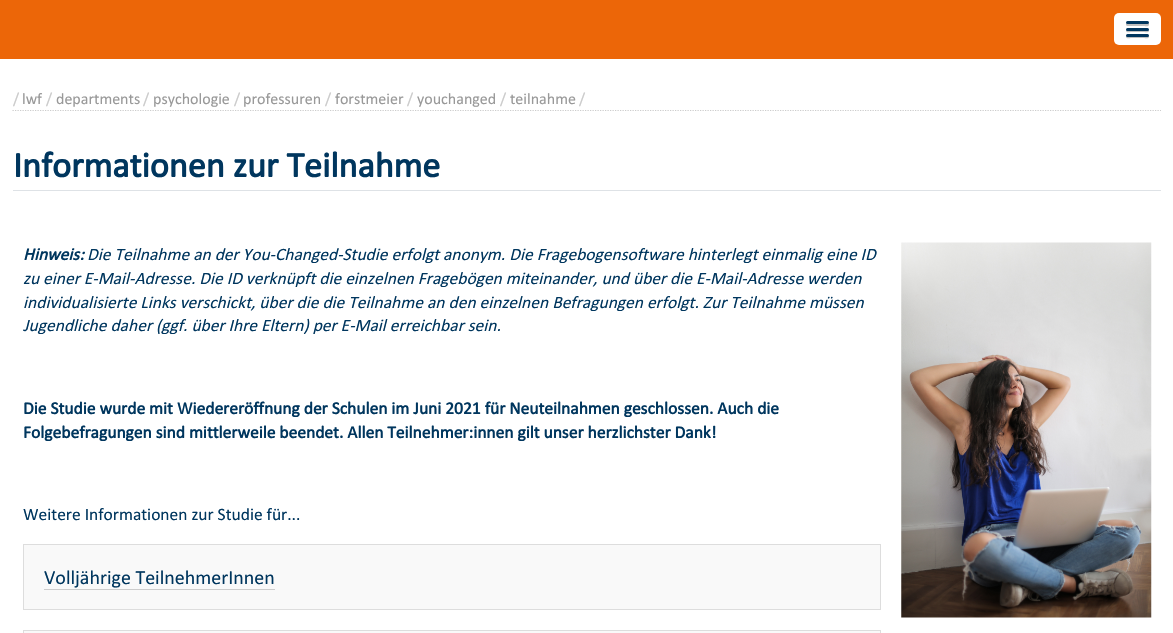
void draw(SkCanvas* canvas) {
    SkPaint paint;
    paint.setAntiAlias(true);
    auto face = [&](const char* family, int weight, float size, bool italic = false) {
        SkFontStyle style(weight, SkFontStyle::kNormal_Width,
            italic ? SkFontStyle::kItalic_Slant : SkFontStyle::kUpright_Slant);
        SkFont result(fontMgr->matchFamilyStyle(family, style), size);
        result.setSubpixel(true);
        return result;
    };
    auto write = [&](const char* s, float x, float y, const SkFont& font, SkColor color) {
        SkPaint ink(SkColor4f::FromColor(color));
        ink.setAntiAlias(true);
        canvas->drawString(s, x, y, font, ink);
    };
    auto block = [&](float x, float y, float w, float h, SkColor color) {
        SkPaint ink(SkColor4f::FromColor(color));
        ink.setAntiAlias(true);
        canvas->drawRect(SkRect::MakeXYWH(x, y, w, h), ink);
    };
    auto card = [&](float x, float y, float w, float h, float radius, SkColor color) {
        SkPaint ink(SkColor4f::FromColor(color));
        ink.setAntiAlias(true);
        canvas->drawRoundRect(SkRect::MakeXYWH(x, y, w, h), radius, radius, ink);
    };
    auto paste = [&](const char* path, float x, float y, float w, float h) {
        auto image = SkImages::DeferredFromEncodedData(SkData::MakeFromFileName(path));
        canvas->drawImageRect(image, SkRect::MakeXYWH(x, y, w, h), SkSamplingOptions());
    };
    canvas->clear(SK_ColorWHITE);
    block(0, 0, 1173, 59, SkColorSetRGB(236, 102, 8));
    card(1114, 13, 47, 32, 5, SK_ColorWHITE);
    paint.setColor(SkColorSetRGB(191, 191, 191));
    canvas->drawPath(SkPathBuilder().moveTo(1126.5f, 23.5f).cubicTo(1125.5f, 24, 1126, 25.5f, 1127, 26).lineTo(1144, 26).cubicTo(1145, 26, 1148.5f, 27, 1149, 25).cubicTo(1149, 24.5f, 1149, 23.5f, 1148.5f, 23.5f).cubicTo(1147.5f, 24, 1127.5f, 24, 1126.5f, 23.5f).close().detach(), paint);
    card(1126, 21, 23, 3, 1.5f, SkColorSetRGB(0, 54, 94));
    canvas->drawPath(SkPathBuilder().moveTo(1126.5f, 29.5f).lineTo(1126, 31).cubicTo(1126.5f, 33, 1130, 32, 1131, 32).lineTo(1144, 32).cubicTo(1145, 32, 1148.5f, 33, 1149, 31).lineTo(1148.5f, 29.5f).lineTo(1147.5f, 30).lineTo(1127.5f, 30).close().detach(), paint);
    card(1126, 28, 23, 3, 1.5f, SkColorSetRGB(0, 54, 94));
    canvas->drawPath(SkPathBuilder().moveTo(1126.5f, 35.5f).lineTo(1126, 37).cubicTo(1126.5f, 39, 1130, 38, 1131, 38).lineTo(1144, 38).cubicTo(1145, 38, 1148.5f, 39, 1149, 37).lineTo(1148.5f, 35.5f).cubicTo(1148.5f, 36, 1148, 36, 1147.5f, 36).lineTo(1127.5f, 36).cubicTo(1127, 36, 1126.5f, 36, 1126.5f, 35.5f).close().detach(), paint);
    card(1126, 34, 23, 3, 1.5f, SkColorSetRGB(0, 54, 94));
    paint.setStyle(SkPaint::kStroke_Style);
    paint.setStrokeWidth(1.2f);
    paint.setColor(SkColorSetRGB(204, 204, 204));
    paint.setPathEffect(SkDashPathEffect::Make({{1.25f, 1.25f}}, 0));
    canvas->drawPath(SkPathBuilder().moveTo(12.5f, 110.5f).lineTo(1161, 110.5f).detach(), paint);
    paint.setPathEffect(nullptr);
    auto kFont1 = face("Calibri", 400, 16);
    write("/", 13, 104, kFont1, SkColorSetRGB(204, 204, 204));
    write("lwf", 22, 104, kFont1, SkColorSetRGB(153, 153, 153));
    write("/", 46, 104, kFont1, SkColorSetRGB(204, 204, 204));
    write("departments", 56, 104, kFont1, SkColorSetRGB(153, 153, 153));
    write("/", 143, 104, kFont1, SkColorSetRGB(204, 204, 204));
    write("psychologie", 153, 104, kFont1, SkColorSetRGB(153, 153, 153));
    write("/", 234, 104, kFont1, SkColorSetRGB(204, 204, 204));
    write("professuren", 243, 104, kFont1, SkColorSetRGB(153, 153, 153));
    write("/", 325, 104, kFont1, SkColorSetRGB(204, 204, 204));
    write("forstmeier", 335, 104, kFont1, SkColorSetRGB(153, 153, 153));
    write("/", 407, 104, kFont1, SkColorSetRGB(204, 204, 204));
    write("youchanged", 417, 104, kFont1, SkColorSetRGB(153, 153, 153));
    write("/", 500, 104, kFont1, SkColorSetRGB(204, 204, 204));
    write("teilnahme", 510, 104, kFont1, SkColorSetRGB(153, 153, 153));
    write("/", 579, 104, kFont1, SkColorSetRGB(204, 204, 204));
    block(13, 190, 1148, 1, SkColorSetRGB(222, 226, 230));
    auto kFont2 = face("Calibri", 700, 36);
    write("Informationen zur Teilnahme", 13, 177, kFont2, SkColorSetRGB(0, 54, 94));
    auto kFont3 = face("Calibri", 700, 17.5f, true);
    write("Hinweis:", 23, 260, kFont3, SkColorSetRGB(0, 54, 94));
    auto kFont4 = face("Calibri", 400, 17.5f, true);
    write("Die Teilnahme an der You-Changed-Studie erfolgt anonym. Die Fragebogensoftware hinterlegt einmalig eine ID", 87, 260, kFont4, SkColorSetRGB(0, 54, 94));
    write("zu einer E-Mail-Adresse. Die ID verknüpft die einzelnen Fragebögen miteinander, und über die E-Mail-Adresse werden", 23, 284, kFont4, SkColorSetRGB(0, 54, 94));
    write("individualisierte Links verschickt, über die die Teilnahme an den einzelnen Befragungen erfolgt. Zur Teilnahme müssen", 23, 308, kFont4, SkColorSetRGB(0, 54, 94));
    write("Jugendliche daher (ggf. über Ihre Eltern) per E-Mail erreichbar sein.", 23, 331, kFont4, SkColorSetRGB(0, 54, 94));
    auto kFont5 = face("Calibri", 700, 17.5f);
    write("Die Studie wurde mit Wiedereröffnung der Schulen im Juni 2021 für Neuteilnahmen geschlossen. Auch die", 23, 414, kFont5, SkColorSetRGB(0, 54, 94));
    write("Folgebefragungen sind mittlerweile beendet. Allen Teilnehmer:innen gilt unser herzlichster Dank!", 23, 438, kFont5, SkColorSetRGB(0, 54, 94));
    auto kFont6 = face("Calibri", 400, 17.5f);
    write("Weitere Informationen zur Studie für...", 23, 520, kFont6, SkColorSetRGB(0, 54, 94));
    paint.setStyle(SkPaint::kFill_Style);
    paint.setColor(SkColorSetRGB(249, 249, 249));
    canvas->drawRect(SkRect::MakeXYWH(23.5f, 544.5f, 857, 65), paint);
    paint.setStyle(SkPaint::kStroke_Style);
    paint.setStrokeWidth(1);
    paint.setColor(SkColorSetRGB(221, 221, 221));
    canvas->drawRect(SkRect::MakeXYWH(23.5f, 544.5f, 857, 65), paint);
    auto kFont7 = face("Calibri", 400, 20);
    write("Volljährige TeilnehmerInnen", 44, 584, kFont7, SkColorSetRGB(0, 54, 94));
    block(44, 589, 231, 1, SkColorSetRGB(204, 204, 204));
    paint.setStyle(SkPaint::kFill_Style);
    paint.setColor(SkColorSetRGB(249, 249, 249));
    canvas->drawRect(SkRect::MakeXYWH(23.5f, 630.5f, 857, 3), paint);
    paint.setStyle(SkPaint::kStroke_Style);
    paint.setColor(SkColorSetRGB(221, 221, 221));
    canvas->drawRect(SkRect::MakeXYWH(23.5f, 630.5f, 857, 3), paint);
    paste("pic1.png", 901, 242, 251, 376);
}
